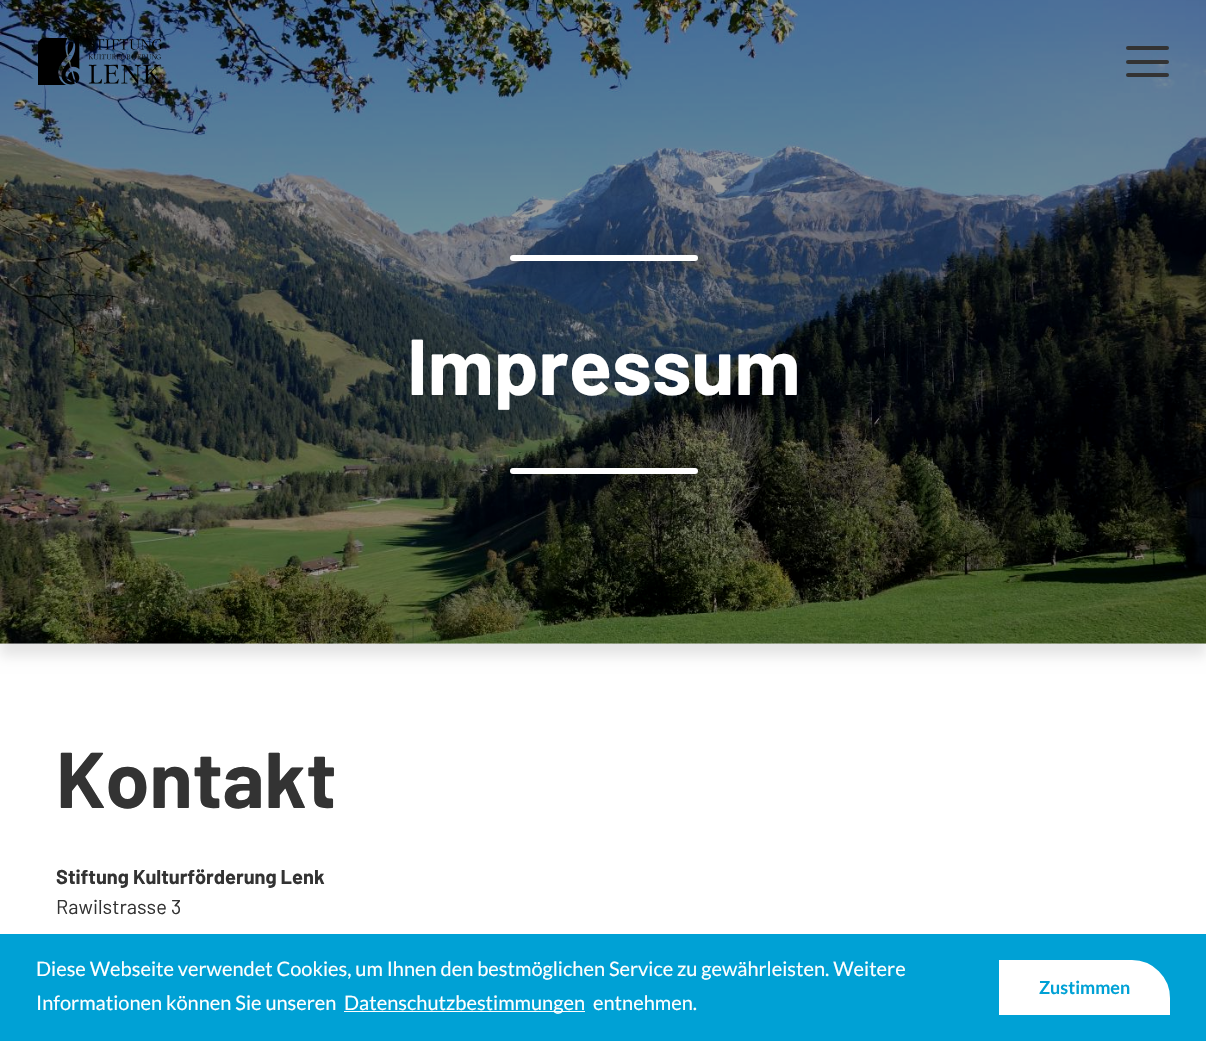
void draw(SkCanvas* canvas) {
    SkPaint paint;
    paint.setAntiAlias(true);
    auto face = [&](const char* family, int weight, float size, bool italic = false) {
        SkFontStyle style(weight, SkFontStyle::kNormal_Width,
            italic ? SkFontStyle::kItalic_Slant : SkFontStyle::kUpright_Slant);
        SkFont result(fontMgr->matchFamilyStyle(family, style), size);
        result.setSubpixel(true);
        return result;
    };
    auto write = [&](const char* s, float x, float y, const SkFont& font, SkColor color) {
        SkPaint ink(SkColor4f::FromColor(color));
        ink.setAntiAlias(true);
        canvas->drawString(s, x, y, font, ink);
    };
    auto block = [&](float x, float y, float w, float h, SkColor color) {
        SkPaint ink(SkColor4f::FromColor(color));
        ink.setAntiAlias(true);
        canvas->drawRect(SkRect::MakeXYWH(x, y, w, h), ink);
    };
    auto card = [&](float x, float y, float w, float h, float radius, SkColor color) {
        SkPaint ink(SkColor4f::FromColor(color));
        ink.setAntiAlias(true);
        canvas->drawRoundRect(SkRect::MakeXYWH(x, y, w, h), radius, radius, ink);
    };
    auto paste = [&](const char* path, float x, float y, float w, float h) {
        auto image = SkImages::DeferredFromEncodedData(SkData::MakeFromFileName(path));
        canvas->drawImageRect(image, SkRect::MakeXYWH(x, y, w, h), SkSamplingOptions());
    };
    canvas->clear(SK_ColorWHITE);
    paint.setColor(SkColorSetARGB(26, 0, 0, 0));
    paint.setMaskFilter(SkMaskFilter::MakeBlur(kNormal_SkBlurStyle, 6));
    canvas->drawRect(SkRect::MakeXYWH(0, 13, 1206, 643), paint);
    paint.setMaskFilter(nullptr);
    block(0, 643, 1206, 1, SkColorSetRGB(238, 238, 238));
    paste("pic2.png", 0, 0, 1206, 644);
    paste("pic1.png", 38, 38, 124, 47);
    card(1126, 46, 43, 4, 2, SkColorSetRGB(51, 51, 51));
    card(1126, 60, 43, 4, 2, SkColorSetRGB(51, 51, 51));
    card(1126, 73, 43, 4, 2, SkColorSetRGB(51, 51, 51));
    paint.setColor(SkColorSetARGB(179, 0, 0, 0));
    paint.setMaskFilter(SkMaskFilter::MakeBlur(kNormal_SkBlurStyle, 15.5f));
    canvas->drawRoundRect(SkRect::MakeXYWH(510, 255, 188, 6), 3, 3, paint);
    paint.setMaskFilter(nullptr);
    card(510, 255, 188, 6, 3, SK_ColorWHITE);
    auto kFont1 = face("Barlow", 700, 79);
    write("Impressum", 407, 395, kFont1, SK_ColorWHITE);
    paint.setMaskFilter(SkMaskFilter::MakeBlur(kNormal_SkBlurStyle, 15.5f));
    canvas->drawRoundRect(SkRect::MakeXYWH(510, 468, 188, 6), 3, 3, paint);
    paint.setMaskFilter(nullptr);
    card(510, 468, 188, 6, 3, SK_ColorWHITE);
    write("Kontakt", 56, 808, kFont1, SkColorSetRGB(51, 51, 51));
    auto kFont2 = face("Barlow", 700, 20);
    write("Stiftung Kulturförderung Lenk", 56, 884, kFont2, SkColorSetRGB(51, 51, 51));
    auto kFont3 = face("Barlow", 400, 20);
    write("Rawilstrasse 3", 56, 914, kFont3, SkColorSetRGB(51, 51, 51));
    block(0, 934, 1206, 107, SkColorSetRGB(0, 161, 213));
    auto kFont4 = face("Lato", 400, 20);
    write("Diese Webseite verwendet Cookies, um Ihnen den bestmöglichen Service zu gewährleisten. Weitere", 36, 976, kFont4, SK_ColorWHITE);
    write("Informationen können Sie unseren", 36, 1010, kFont4, SK_ColorWHITE);
    block(344, 1011, 241, 1, SK_ColorWHITE);
    write("Datenschutzbestimmungen", 344, 1010, kFont4, SK_ColorWHITE);
    write("entnehmen.", 593, 1010, kFont4, SK_ColorWHITE);
    paint.setColor(SK_ColorWHITE);
    canvas->drawPath(SkPathBuilder().moveTo(1000.5f, 961.5f).lineTo(1132, 961.5f).cubicTo(1152, 961.5f, 1168.5f, 978, 1168.5f, 998).lineTo(1168.5f, 1013.5f).lineTo(1000.5f, 1013.5f).close().detach(), paint);
    paint.setStyle(SkPaint::kStroke_Style);
    paint.setStrokeWidth(3);
    canvas->drawPath(SkPathBuilder().moveTo(1000.5f, 961.5f).lineTo(1132, 961.5f).cubicTo(1152, 961.5f, 1168.5f, 978, 1168.5f, 998).lineTo(1168.5f, 1013.5f).lineTo(1000.5f, 1013.5f).close().detach(), paint);
    auto kFont5 = face("Lato", 700, 18);
    write("Zustimmen", 1039, 994, kFont5, SkColorSetRGB(0, 161, 213));
}
